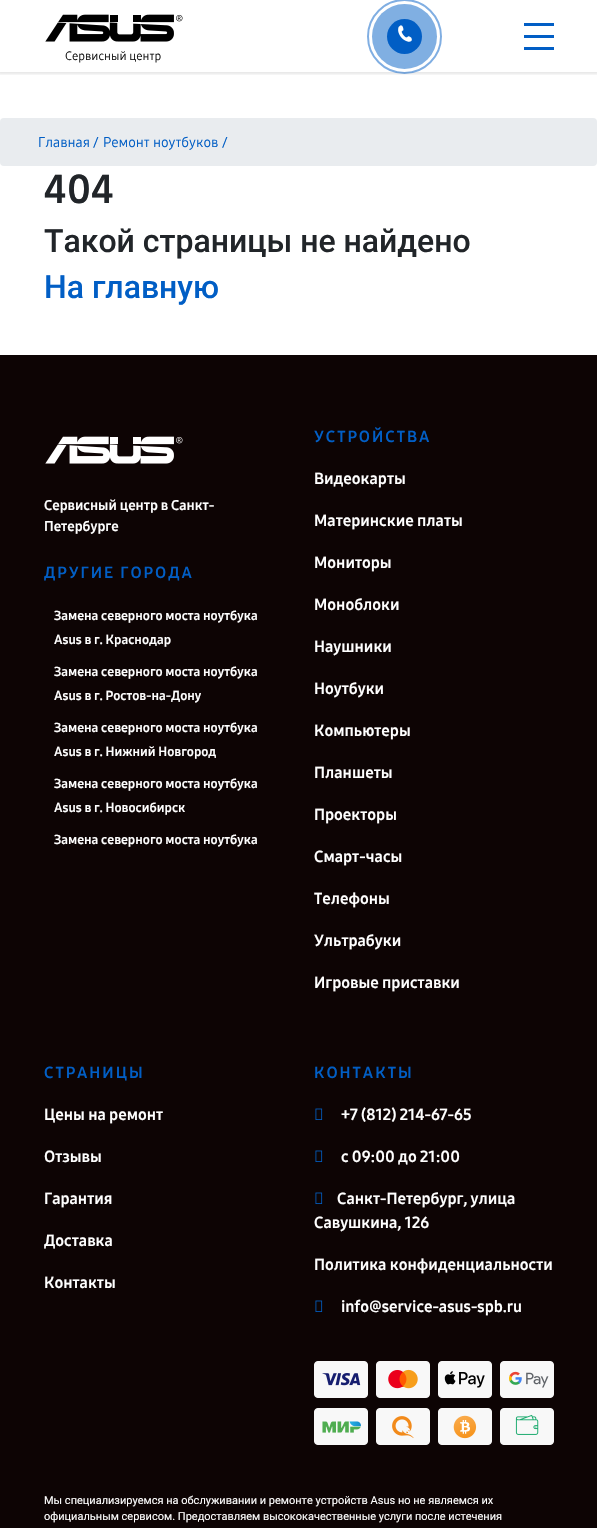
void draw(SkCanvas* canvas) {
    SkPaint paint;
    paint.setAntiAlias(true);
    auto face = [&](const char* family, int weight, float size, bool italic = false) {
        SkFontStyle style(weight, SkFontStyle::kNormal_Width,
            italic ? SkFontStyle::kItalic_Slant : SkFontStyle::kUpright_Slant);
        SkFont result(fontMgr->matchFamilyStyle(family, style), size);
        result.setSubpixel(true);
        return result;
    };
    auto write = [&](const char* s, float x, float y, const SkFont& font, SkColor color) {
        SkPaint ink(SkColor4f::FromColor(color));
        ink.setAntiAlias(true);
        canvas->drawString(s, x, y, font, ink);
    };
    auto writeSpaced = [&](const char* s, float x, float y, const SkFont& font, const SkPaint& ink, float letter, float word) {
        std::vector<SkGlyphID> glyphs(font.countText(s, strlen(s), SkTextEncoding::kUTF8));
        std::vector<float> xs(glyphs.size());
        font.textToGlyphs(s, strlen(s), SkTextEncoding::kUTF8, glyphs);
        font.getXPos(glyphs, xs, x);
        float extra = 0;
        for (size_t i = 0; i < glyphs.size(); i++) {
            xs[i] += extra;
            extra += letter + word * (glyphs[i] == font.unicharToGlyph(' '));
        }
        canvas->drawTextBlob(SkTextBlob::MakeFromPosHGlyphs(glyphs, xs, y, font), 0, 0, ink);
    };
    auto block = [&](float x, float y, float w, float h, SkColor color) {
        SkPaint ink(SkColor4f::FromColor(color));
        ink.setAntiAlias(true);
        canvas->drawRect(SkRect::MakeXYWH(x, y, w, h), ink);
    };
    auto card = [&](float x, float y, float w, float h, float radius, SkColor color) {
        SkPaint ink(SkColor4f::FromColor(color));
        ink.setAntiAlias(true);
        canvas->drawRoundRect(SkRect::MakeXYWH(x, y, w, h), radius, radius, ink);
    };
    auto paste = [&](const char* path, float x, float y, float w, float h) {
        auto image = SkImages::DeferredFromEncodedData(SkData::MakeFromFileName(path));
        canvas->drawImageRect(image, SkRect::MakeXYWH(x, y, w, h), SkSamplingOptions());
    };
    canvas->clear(SK_ColorWHITE);
    canvas->save();
    canvas->clipRect(SkRect::MakeXYWH(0, 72, 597, 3));
    paint.setColor(SkColorSetARGB(26, 0, 0, 0));
    paint.setMaskFilter(SkMaskFilter::MakeBlur(kNormal_SkBlurStyle, 1.5f));
    canvas->drawRect(SkRect::MakeXYWH(-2, -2, 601, 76), paint);
    paint.setMaskFilter(nullptr);
    canvas->restore();
    paste("pic1.png", 45, 14, 138, 28);
    auto kFont1 = face("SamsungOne", 400, 12);
    write("Сервисный центр", 65, 60, kFont1, SkColorSetRGB(17, 17, 17));
    paint.setStyle(SkPaint::kStroke_Style);
    paint.setStrokeWidth(2);
    paint.setColor(SkColorSetARGB(128, 1, 94, 197));
    canvas->drawCircle(404.5f, 36.5f, 36.5f, paint);
    paint.setStyle(SkPaint::kFill_Style);
    paint.setColor(SkColorSetRGB(128, 175, 226));
    canvas->drawCircle(404.5f, 36.5f, 32.5f, paint);
    paint.setColor(SkColorSetRGB(1, 94, 197));
    canvas->drawCircle(404.5f, 36.5f, 17.5f, paint);
    paste("pic2.png", 398, 25, 14, 17);
    block(524, 23, 30, 3, SkColorSetRGB(1, 94, 197));
    block(524, 35, 30, 3, SkColorSetRGB(1, 94, 197));
    block(524, 47, 30, 3, SkColorSetRGB(1, 94, 197));
    card(0, 118, 597, 48, 4, SkColorSetRGB(233, 236, 239));
    auto kFont2 = face("SamsungOne", 400, 14);
    write("Главная", 38, 147, kFont2, SkColorSetRGB(1, 94, 197));
    auto kFont3 = face("Roboto", 400, 14);
    write("/", 93, 147, kFont3, SkColorSetRGB(1, 94, 197));
    write("Ремонт ноутбуков", 103, 147, kFont2, SkColorSetRGB(1, 94, 197));
    write("/", 222, 147, kFont3, SkColorSetRGB(1, 94, 197));
    auto kFont4 = face("SamsungOne", 700, 40);
    write("404", 44, 203, kFont4, SkColorSetRGB(33, 37, 41));
    auto kFont5 = face("Roboto", 500, 32);
    write("Такой страницы не найдено", 44, 252, kFont5, SkColorSetRGB(33, 37, 41));
    write("На главную", 44, 298, kFont5, SkColorSetRGB(1, 94, 197));
    block(0, 355, 597, 1173, SkColorSetRGB(13, 4, 4));
    paste("pic3.png", 45, 436, 138, 28);
    auto kFont6 = face("SamsungOne", 700, 14);
    write("Сервисный центр в Санкт-", 44, 510, kFont6, SK_ColorWHITE);
    write("Петербурге", 44, 531, kFont6, SK_ColorWHITE);
    auto kFont7 = face("SamsungOne", 700, 16);
    writeSpaced("ДРУГИЕ ГОРОДА", 44, 578, kFont7, paint, 2, 0);
    auto kFont8 = face("SamsungOne", 700, 13);
    write("Замена северного моста ноутбука", 54, 620, kFont8, SK_ColorWHITE);
    write("Asus в г. Краснодар", 54, 644, kFont8, SK_ColorWHITE);
    write("Замена северного моста ноутбука", 54, 676, kFont8, SK_ColorWHITE);
    write("Asus в г. Ростов-на-Дону", 54, 700, kFont8, SK_ColorWHITE);
    write("Замена северного моста ноутбука", 54, 732, kFont8, SK_ColorWHITE);
    write("Asus в г. Нижний Новгород", 54, 756, kFont8, SK_ColorWHITE);
    write("Замена северного моста ноутбука", 54, 788, kFont8, SK_ColorWHITE);
    write("Asus в г. Новосибирск", 54, 812, kFont8, SK_ColorWHITE);
    write("Замена северного моста ноутбука", 54, 844, kFont8, SK_ColorWHITE);
    writeSpaced("УСТРОЙСТВА", 314, 442, kFont7, paint, 2, 0);
    write("Видеокарты", 314, 484, kFont7, SK_ColorWHITE);
    write("Материнские платы", 314, 526, kFont7, SK_ColorWHITE);
    write("Мониторы", 314, 568, kFont7, SK_ColorWHITE);
    write("Моноблоки", 314, 610, kFont7, SK_ColorWHITE);
    write("Наушники", 314, 652, kFont7, SK_ColorWHITE);
    write("Ноутбуки", 314, 694, kFont7, SK_ColorWHITE);
    write("Компьютеры", 314, 736, kFont7, SK_ColorWHITE);
    write("Планшеты", 314, 778, kFont7, SK_ColorWHITE);
    write("Проекторы", 314, 820, kFont7, SK_ColorWHITE);
    write("Смарт-часы", 314, 862, kFont7, SK_ColorWHITE);
    write("Телефоны", 314, 904, kFont7, SK_ColorWHITE);
    write("Ультрабуки", 314, 946, kFont7, SK_ColorWHITE);
    write("Игровые приставки", 314, 988, kFont7, SK_ColorWHITE);
    writeSpaced("СТРАНИЦЫ", 44, 1078, kFont7, paint, 2, 0);
    write("Цены на ремонт", 44, 1120, kFont7, SK_ColorWHITE);
    write("Отзывы", 44, 1162, kFont7, SK_ColorWHITE);
    write("Гарантия", 44, 1204, kFont7, SK_ColorWHITE);
    write("Доставка", 44, 1246, kFont7, SK_ColorWHITE);
    write("Контакты", 44, 1288, kFont7, SK_ColorWHITE);
    writeSpaced("КОНТАКТЫ", 314, 1078, kFont7, paint, 2, 0);
    paste("pic4.png", 315, 1108, 8, 12);
    write("+7 (812) 214-67-65", 341, 1120, kFont7, SK_ColorWHITE);
    paste("pic4.png", 315, 1150, 8, 12);
    write("c 09:00 до 21:00", 341, 1162, kFont7, SK_ColorWHITE);
    paste("pic4.png", 315, 1192, 8, 12);
    write("Санкт-Петербург, улица", 337, 1204, kFont7, SK_ColorWHITE);
    write("Савушкина, 126", 314, 1228, kFont7, SK_ColorWHITE);
    write("Политика конфиденциальности", 314, 1270, kFont7, SK_ColorWHITE);
    paste("pic4.png", 315, 1300, 8, 12);
    write("info@service-asus-spb.ru", 341, 1312, kFont7, SK_ColorWHITE);
    paste("pic5.png", 314, 1361, 240, 84);
    auto kFont9 = face("Roboto", 400, 11);
    write("Мы специализируемся на обслуживании и ремонте устройств Asus но не являемся их", 44, 1504, kFont9, SK_ColorWHITE);
    write("официальным сервисом. Предоставляем высококачественные услуги после истечения", 44, 1520, kFont9, SK_ColorWHITE);
}
